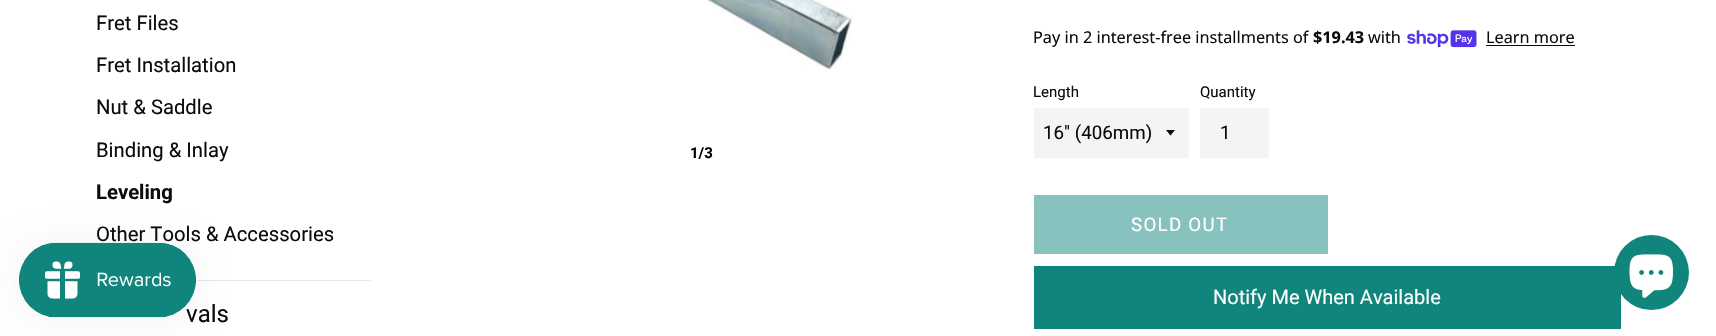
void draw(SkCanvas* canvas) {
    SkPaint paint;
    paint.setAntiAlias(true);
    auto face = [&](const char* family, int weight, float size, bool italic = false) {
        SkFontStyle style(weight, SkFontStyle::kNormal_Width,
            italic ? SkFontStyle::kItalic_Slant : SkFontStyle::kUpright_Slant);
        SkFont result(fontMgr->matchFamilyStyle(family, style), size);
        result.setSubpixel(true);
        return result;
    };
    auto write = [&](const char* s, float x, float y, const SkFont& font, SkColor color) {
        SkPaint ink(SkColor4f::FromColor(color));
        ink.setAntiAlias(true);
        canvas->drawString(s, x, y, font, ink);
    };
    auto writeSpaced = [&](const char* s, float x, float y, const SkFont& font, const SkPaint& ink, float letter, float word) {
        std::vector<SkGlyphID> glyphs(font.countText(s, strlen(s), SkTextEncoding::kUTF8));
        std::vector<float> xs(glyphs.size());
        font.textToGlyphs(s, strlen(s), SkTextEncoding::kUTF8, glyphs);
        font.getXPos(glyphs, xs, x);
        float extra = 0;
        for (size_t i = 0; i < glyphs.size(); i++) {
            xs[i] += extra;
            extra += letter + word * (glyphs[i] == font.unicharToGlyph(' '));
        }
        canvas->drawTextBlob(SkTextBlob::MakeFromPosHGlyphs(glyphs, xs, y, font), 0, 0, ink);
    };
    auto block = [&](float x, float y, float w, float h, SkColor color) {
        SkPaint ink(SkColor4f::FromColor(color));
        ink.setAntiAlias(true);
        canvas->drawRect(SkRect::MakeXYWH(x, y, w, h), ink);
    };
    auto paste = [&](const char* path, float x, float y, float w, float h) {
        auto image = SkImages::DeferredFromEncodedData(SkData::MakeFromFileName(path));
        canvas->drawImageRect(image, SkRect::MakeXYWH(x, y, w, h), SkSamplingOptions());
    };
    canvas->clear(SK_ColorWHITE);
    block(196, 280, 175, 1, SkColorSetRGB(237, 232, 231));
    auto kFont1 = face("Roboto", 400, 20.25f);
    write("Fret Files", 96, 30, kFont1, SkColorSetRGB(12, 12, 12));
    write("Fret Installation", 96, 72, kFont1, SkColorSetRGB(12, 12, 12));
    write("Nut & Saddle", 96, 114, kFont1, SkColorSetRGB(12, 12, 12));
    write("Binding & Inlay", 96, 157, kFont1, SkColorSetRGB(12, 12, 12));
    auto kFont2 = face("Roboto", 700, 20.25f);
    write("Leveling", 96, 199, kFont2, SkColorSetRGB(12, 12, 12));
    write("Other Tools & Accessories", 96, 241, kFont1, SkColorSetRGB(12, 12, 12));
    auto kFont3 = face("Roboto", 400, 24);
    write("vals", 186, 322, kFont3, SkColorSetRGB(12, 12, 12));
    paste("pic1.png", 706, 0, 146, 70);
    auto kFont4 = face("Roboto", 700, 15);
    write("1/3", 690, 158, kFont4, SK_ColorBLACK);
    auto kFont5 = face("Noto Sans", 400, 16.25f);
    write("Pay in 2 interest-free installments of", 1033, 43, kFont5, SkColorSetRGB(12, 12, 12));
    auto kFont6 = face("Noto Sans", 700, 16.25f);
    write("$19.43", 1313, 43, kFont6, SkColorSetRGB(12, 12, 12));
    write("with", 1368, 43, kFont5, SkColorSetRGB(12, 12, 12));
    paste("pic2.png", 1407, 30, 70, 18);
    write("Learn more", 1486, 43, kFont5, SkColorSetRGB(12, 12, 12));
    block(1486, 45, 89, 1, SkColorSetRGB(12, 12, 12));
    auto kFont7 = face("Roboto", 400, 15);
    write("Length", 1033, 97, kFont7, SkColorSetRGB(12, 12, 12));
    block(1034, 108, 155, 50, SkColorSetRGB(244, 244, 244));
    paint.setColor(SkColorSetRGB(12, 12, 12));
    canvas->drawPath(SkPathBuilder().moveTo(1166, 130).lineTo(1170.5f, 135.5f).lineTo(1175, 130).close().detach(), paint);
    auto kFont8 = face("Roboto", 400, 18.75f);
    write("16\" (406mm)", 1043, 139, kFont8, SkColorSetRGB(12, 12, 12));
    write("Quantity", 1200, 97, kFont7, SkColorSetRGB(12, 12, 12));
    block(1200, 108, 69, 50, SkColorSetRGB(244, 244, 244));
    write("1", 1220, 139, kFont8, SkColorSetRGB(12, 12, 12));
    block(1034, 195, 294, 59, SkColorSetRGB(135, 194, 190));
    paint.setColor(SK_ColorWHITE);
    writeSpaced("SOLD OUT", 1131, 231, kFont8, paint, 1.25f, 0);
    block(1034, 266, 587, 63, SkColorSetRGB(15, 133, 124));
    auto kFont9 = face("Roboto", 400, 20);
    write("Notify Me When Available", 1213, 304, kFont9, SK_ColorWHITE);
    paint.setColor(SkColorSetARGB(13, 0, 0, 0));
    paint.setMaskFilter(SkMaskFilter::MakeBlur(kNormal_SkBlurStyle, 15.5f));
    canvas->drawRoundRect(SkRect::MakeXYWH(19, 243, 177, 75), 37.5f, 37.5f, paint);
    paint.setMaskFilter(nullptr);
    paste("pic3.png", 19, 242, 177, 76);
    paint.setColor(SkColorSetRGB(15, 133, 124));
    canvas->drawCircle(1651.5f, 272.5f, 37.5f, paint);
    paste("pic4.png", 1629, 254, 44, 44);
}
